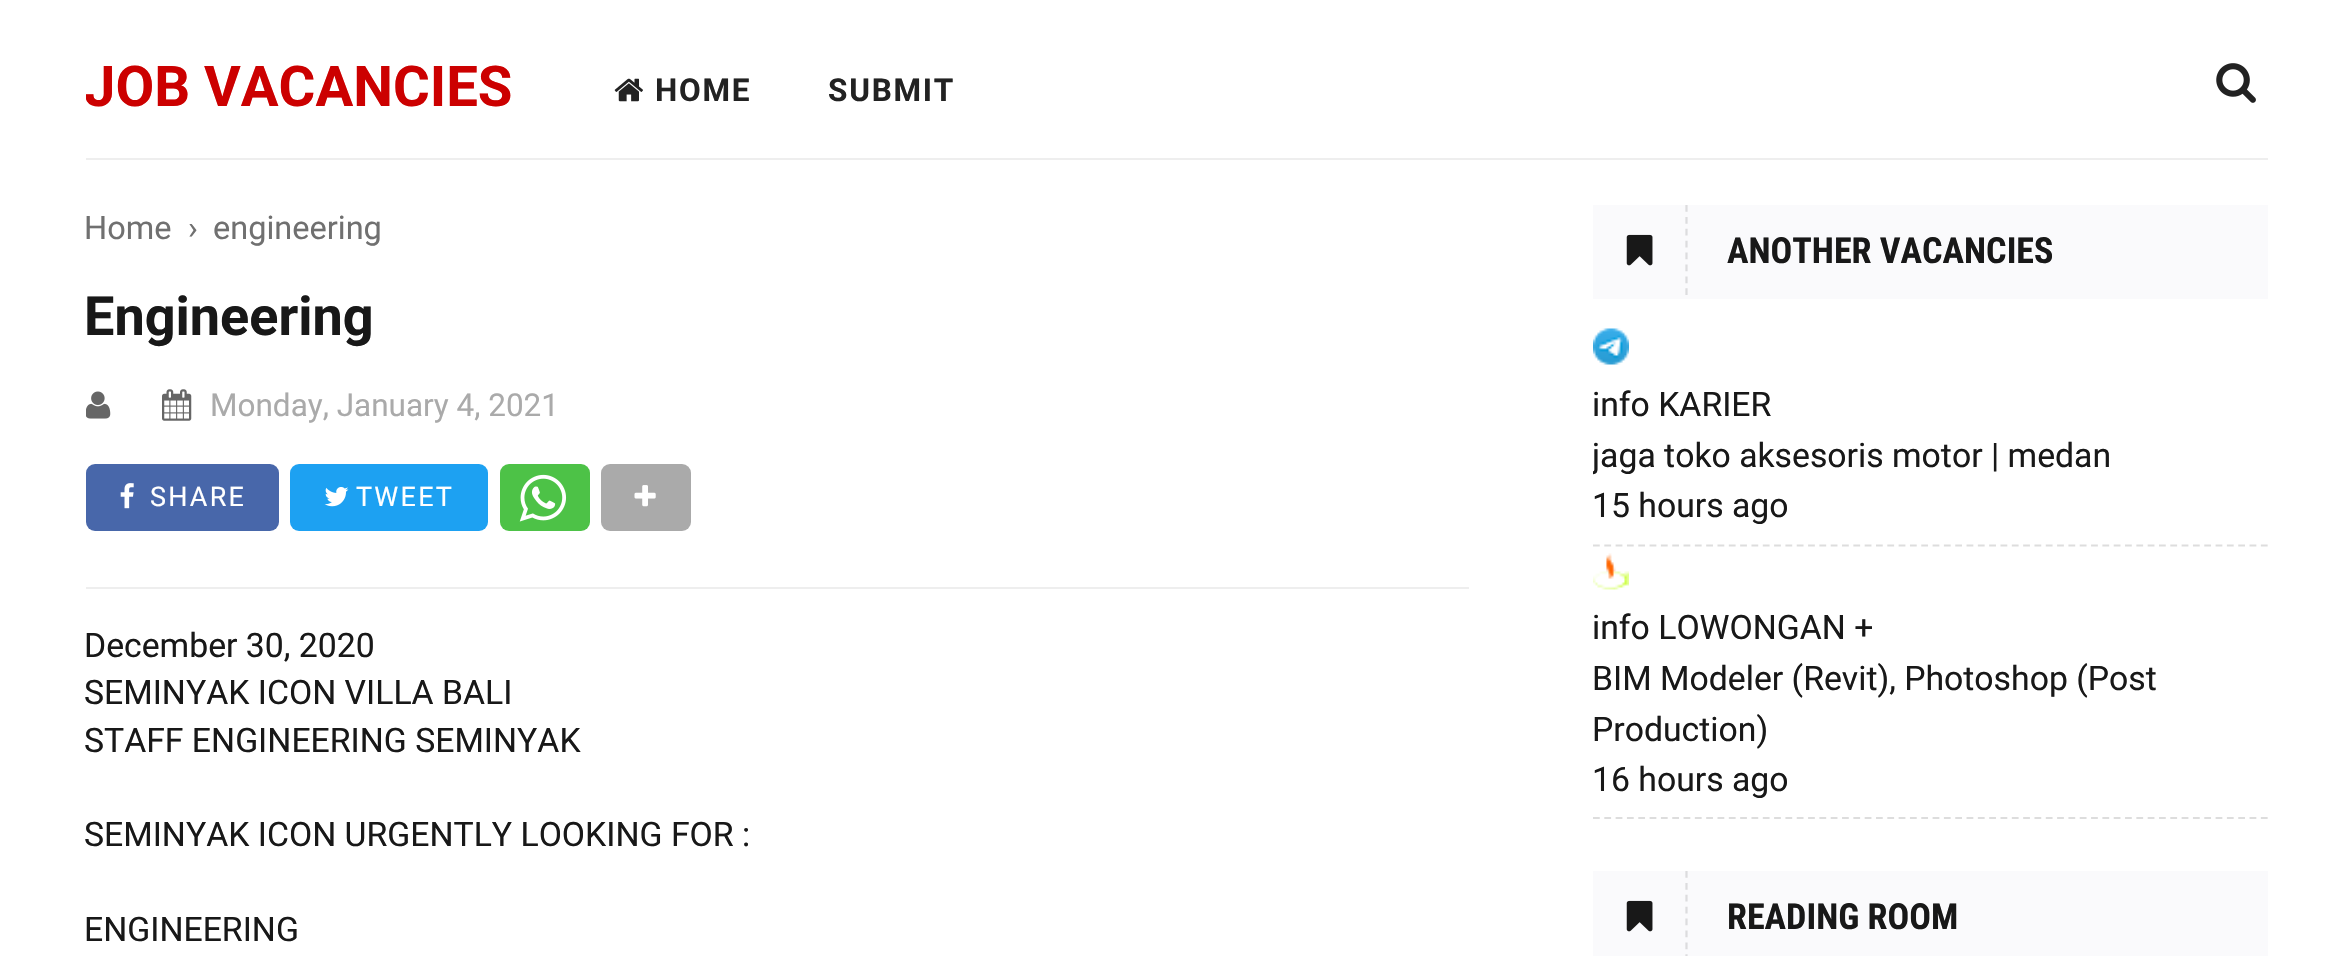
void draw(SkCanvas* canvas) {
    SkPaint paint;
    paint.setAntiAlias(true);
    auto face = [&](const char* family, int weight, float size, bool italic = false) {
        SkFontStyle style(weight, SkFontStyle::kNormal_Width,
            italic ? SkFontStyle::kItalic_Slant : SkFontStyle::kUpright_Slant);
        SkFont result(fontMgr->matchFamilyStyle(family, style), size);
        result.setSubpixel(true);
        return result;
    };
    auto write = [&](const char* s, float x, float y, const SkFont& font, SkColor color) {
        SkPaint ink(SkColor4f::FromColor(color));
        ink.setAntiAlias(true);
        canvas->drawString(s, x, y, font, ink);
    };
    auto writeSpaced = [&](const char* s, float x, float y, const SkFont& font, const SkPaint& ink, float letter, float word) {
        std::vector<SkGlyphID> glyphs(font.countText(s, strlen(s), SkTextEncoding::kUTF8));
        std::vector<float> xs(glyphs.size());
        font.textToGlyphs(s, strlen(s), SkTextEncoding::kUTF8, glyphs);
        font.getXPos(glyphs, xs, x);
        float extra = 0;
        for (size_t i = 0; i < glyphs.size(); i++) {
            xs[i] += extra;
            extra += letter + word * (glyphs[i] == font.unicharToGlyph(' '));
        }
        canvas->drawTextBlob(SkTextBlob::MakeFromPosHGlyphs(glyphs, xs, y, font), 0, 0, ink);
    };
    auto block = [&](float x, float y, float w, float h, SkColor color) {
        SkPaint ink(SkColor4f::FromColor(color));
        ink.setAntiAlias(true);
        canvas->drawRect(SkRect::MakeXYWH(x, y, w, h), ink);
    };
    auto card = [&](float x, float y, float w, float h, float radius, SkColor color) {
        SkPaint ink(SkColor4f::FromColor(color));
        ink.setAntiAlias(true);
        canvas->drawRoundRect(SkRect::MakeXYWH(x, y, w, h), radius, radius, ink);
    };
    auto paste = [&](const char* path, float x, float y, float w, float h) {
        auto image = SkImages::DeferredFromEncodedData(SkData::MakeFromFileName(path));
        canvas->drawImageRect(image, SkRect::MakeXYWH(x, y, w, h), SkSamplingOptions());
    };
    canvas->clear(SK_ColorWHITE);
    block(86, 158, 2182, 2, SkColorSetRGB(238, 238, 238));
    canvas->save();
    canvas->clipRect(SkRect::MakeXYWH(86, 34, 427, 106));
    auto kFont1 = face("Roboto", 700, 56.25f);
    write("JOB VACANCIES", 84, 106, kFont1, SkColorSetRGB(204, 0, 0));
    canvas->restore();
    paste("pic1.png", 614, 78, 29, 24);
    auto kFont2 = face("Roboto", 700, 31.5f);
    paint.setColor(SkColorSetRGB(34, 34, 34));
    writeSpaced("HOME", 655, 101, kFont2, paint, 1.75f, 0);
    writeSpaced("SUBMIT", 828, 101, kFont2, paint, 1.75f, 0);
    paste("pic2.png", 2216, 63, 40, 40);
    auto kFont3 = face("Roboto", 400, 32.5f);
    write("Home", 84, 239, kFont3, SkColorSetRGB(112, 112, 112));
    write("›", 188, 239, kFont3, SkColorSetRGB(112, 112, 112));
    write("engineering", 213, 239, kFont3, SkColorSetRGB(112, 112, 112));
    auto kFont4 = face("Roboto", 700, 54);
    write("Engineering", 84, 335, kFont4, SkColorSetRGB(24, 24, 24));
    paste("pic3.png", 86, 391, 25, 28);
    paste("pic4.png", 162, 389, 30, 32);
    auto kFont5 = face("Roboto", 400, 31.5f);
    write("Monday, January 4, 2021", 210, 416, kFont5, SkColorSetRGB(170, 170, 170));
    card(86, 464, 193, 67, 9, SkColorSetRGB(72, 103, 170));
    paste("pic5.png", 120, 483, 14, 26);
    auto kFont6 = face("Roboto", 400, 27);
    paint.setColor(SK_ColorWHITE);
    writeSpaced("SHARE", 150, 506, kFont6, paint, 2.25f, 0);
    card(290, 464, 198, 67, 9, SkColorSetRGB(29, 161, 242));
    paste("pic6.png", 324, 487, 25, 20);
    writeSpaced("TWEET", 356, 506, kFont6, paint, 2.25f, 0);
    card(500, 464, 90, 67, 9, SkColorSetRGB(77, 194, 71));
    paste("pic7.png", 519, 474, 48, 48);
    card(601, 464, 90, 67, 9, SkColorSetRGB(170, 170, 170));
    paste("pic8.png", 634, 485, 22, 22);
    block(86, 587, 1383, 2, SkColorSetRGB(238, 238, 238));
    auto kFont7 = face("Roboto", 400, 33.75f);
    write("December 30, 2020", 84, 657, kFont7, SkColorSetRGB(24, 24, 24));
    write("SEMINYAK ICON VILLA BALI", 84, 704, kFont7, SkColorSetRGB(24, 24, 24));
    write("STAFF ENGINEERING SEMINYAK", 84, 752, kFont7, SkColorSetRGB(24, 24, 24));
    write("SEMINYAK ICON URGENTLY LOOKING FOR :", 84, 846, kFont7, SkColorSetRGB(24, 24, 24));
    write("ENGINEERING", 84, 941, kFont7, SkColorSetRGB(24, 24, 24));
    block(1593, 205, 675, 94, SkColorSetRGB(250, 250, 252));
    paint.setStyle(SkPaint::kStroke_Style);
    paint.setStrokeWidth(2.2f);
    paint.setColor(SkColorSetRGB(220, 220, 222));
    paint.setPathEffect(SkDashPathEffect::Make({{6.75f, 5.15f}}, 0));
    canvas->drawPath(SkPathBuilder().moveTo(1686.5f, 205).lineTo(1686.5f, 295).detach(), paint);
    paint.setPathEffect(nullptr);
    paste("pic9.png", 1626, 234, 27, 32);
    auto kFont8 = face("Roboto Condensed", 700, 36);
    write("ANOTHER VACANCIES", 1727, 263, kFont8, SkColorSetRGB(24, 24, 24));
    paint.setColor(SkColorSetRGB(221, 221, 221));
    paint.setPathEffect(SkDashPathEffect::Make({{6.75f, 4.57f}}, 0));
    canvas->drawPath(SkPathBuilder().moveTo(1593, 545.5f).lineTo(2268, 545.5f).detach(), paint);
    paint.setPathEffect(nullptr);
    paste("pic10.png", 1593, 328, 36, 37);
    write("info KARIER", 1592, 416, kFont7, SkColorSetRGB(24, 24, 24));
    canvas->save();
    canvas->clipRect(SkRect::MakeXYWH(1593, 205, 675, 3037));
    write("jaga toko aksesoris motor | medan", 1592, 467, kFont7, SkColorSetRGB(24, 24, 24));
    canvas->restore();
    write("15 hours ago", 1592, 517, kFont7, SkColorSetRGB(24, 24, 24));
    paint.setPathEffect(SkDashPathEffect::Make({{6.75f, 4.57f}}, 0));
    canvas->drawPath(SkPathBuilder().moveTo(1593, 818).lineTo(2268, 818).detach(), paint);
    paint.setPathEffect(nullptr);
    paste("pic11.png", 1593, 553, 36, 37);
    write("info LOWONGAN +", 1592, 639, kFont7, SkColorSetRGB(24, 24, 24));
    write("BIM Modeler (Revit), Photoshop (Post", 1592, 690, kFont7, SkColorSetRGB(24, 24, 24));
    write("Production)", 1592, 741, kFont7, SkColorSetRGB(24, 24, 24));
    write("16 hours ago", 1592, 791, kFont7, SkColorSetRGB(24, 24, 24));
    block(1593, 871, 675, 85, SkColorSetRGB(250, 250, 252));
    paint.setColor(SkColorSetRGB(220, 220, 222));
    paint.setPathEffect(SkDashPathEffect::Make({{6.75f, 5.15f}}, 0));
    canvas->drawPath(SkPathBuilder().moveTo(1686.5f, 871).lineTo(1686.5f, 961).detach(), paint);
    paint.setPathEffect(nullptr);
    paste("pic9.png", 1626, 900, 27, 32);
    write("READING ROOM", 1727, 929, kFont8, SkColorSetRGB(24, 24, 24));
}
